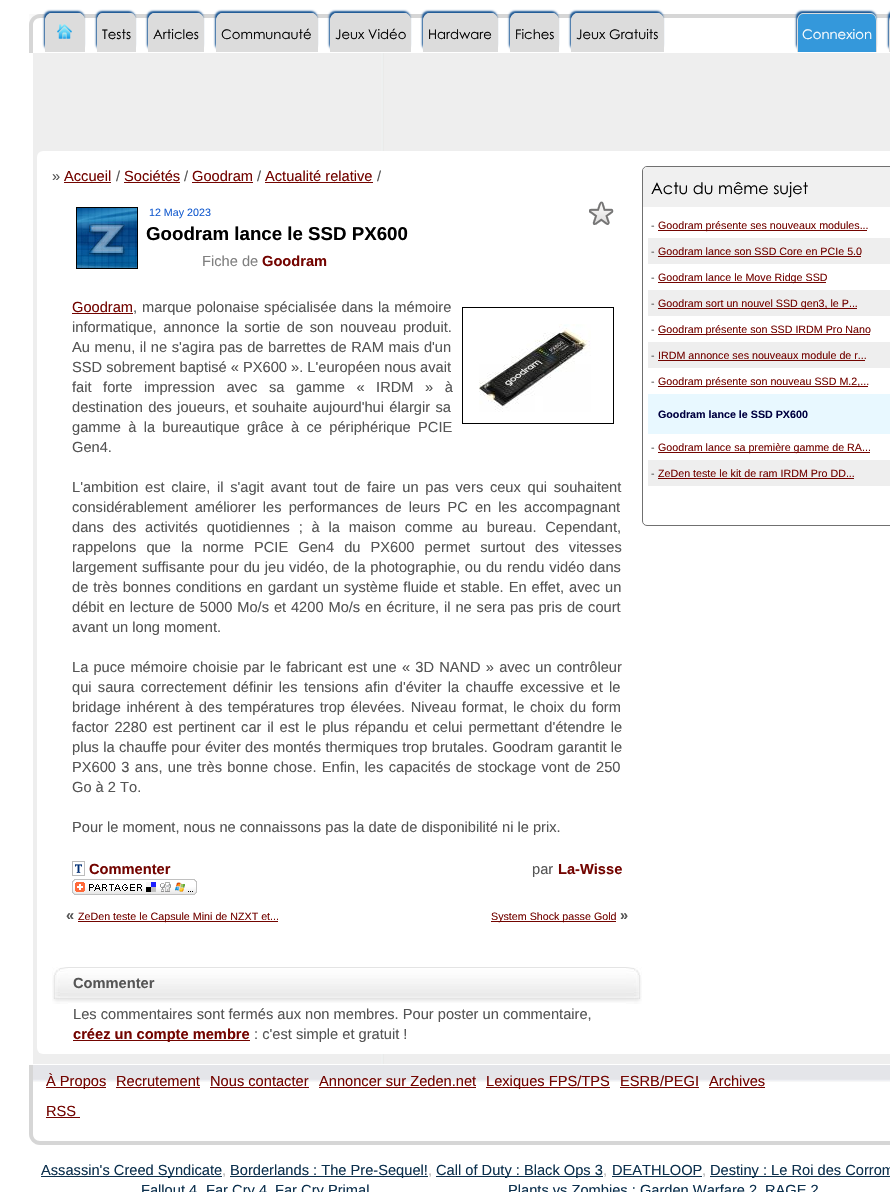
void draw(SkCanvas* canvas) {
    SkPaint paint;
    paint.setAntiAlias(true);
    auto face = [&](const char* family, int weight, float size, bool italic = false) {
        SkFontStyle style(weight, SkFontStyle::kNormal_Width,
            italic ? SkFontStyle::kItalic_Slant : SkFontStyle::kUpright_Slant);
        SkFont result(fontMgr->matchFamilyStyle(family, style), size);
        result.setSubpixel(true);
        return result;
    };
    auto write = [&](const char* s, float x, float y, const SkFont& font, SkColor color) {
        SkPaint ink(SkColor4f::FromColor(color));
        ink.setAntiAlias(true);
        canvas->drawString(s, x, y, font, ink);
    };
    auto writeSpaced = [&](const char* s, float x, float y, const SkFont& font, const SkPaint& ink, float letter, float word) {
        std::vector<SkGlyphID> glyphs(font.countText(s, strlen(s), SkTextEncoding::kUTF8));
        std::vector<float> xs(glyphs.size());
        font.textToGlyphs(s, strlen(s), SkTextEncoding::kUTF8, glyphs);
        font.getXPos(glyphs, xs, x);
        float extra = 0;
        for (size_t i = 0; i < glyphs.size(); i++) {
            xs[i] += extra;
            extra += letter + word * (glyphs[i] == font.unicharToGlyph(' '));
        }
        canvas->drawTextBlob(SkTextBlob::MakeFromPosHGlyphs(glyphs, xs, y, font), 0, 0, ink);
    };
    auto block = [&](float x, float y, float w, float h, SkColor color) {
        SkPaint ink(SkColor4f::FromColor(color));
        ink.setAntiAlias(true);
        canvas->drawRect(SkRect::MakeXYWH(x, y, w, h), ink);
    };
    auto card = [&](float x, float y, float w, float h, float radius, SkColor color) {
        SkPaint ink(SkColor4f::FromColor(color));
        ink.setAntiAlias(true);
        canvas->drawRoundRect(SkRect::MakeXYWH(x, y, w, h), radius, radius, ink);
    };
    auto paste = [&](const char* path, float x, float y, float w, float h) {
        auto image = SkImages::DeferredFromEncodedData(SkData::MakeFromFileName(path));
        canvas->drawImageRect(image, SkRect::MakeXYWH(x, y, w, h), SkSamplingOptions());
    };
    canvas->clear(SK_ColorWHITE);
    paste("pic1.png", 29, 14, 11, 42);
    paint.setColor(SK_ColorWHITE);
    canvas->drawPath(SkPathBuilder().moveTo(40, 14).lineTo(890, 14).cubicTo(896, 14, 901, 19, 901, 25).lineTo(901, 53).lineTo(29, 53).lineTo(29, 25).cubicTo(29, 19, 34, 14, 40, 14).close().detach(), paint);
    paint.setColor(SkColorSetRGB(214, 214, 214));
    canvas->drawPath(SkPathBuilder(SkPathFillType::kEvenOdd).moveTo(40, 14).lineTo(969, 14).cubicTo(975, 14, 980, 19, 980, 25).lineTo(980, 53).lineTo(29, 53).lineTo(29, 25).cubicTo(29, 19, 34, 14, 40, 14).close().moveTo(40, 18).lineTo(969, 18).cubicTo(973, 18, 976, 21, 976, 25).lineTo(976, 53).lineTo(33, 53).lineTo(33, 25).cubicTo(33, 21, 36, 18, 40, 18).close().detach(), paint);
    paint.setColor(SkColorSetRGB(23, 84, 147));
    paint.setMaskFilter(SkMaskFilter::MakeBlur(kNormal_SkBlurStyle, 1));
    canvas->drawRoundRect(SkRect::MakeXYWH(44, 11, 40, 39), 6, 6, paint);
    paint.setMaskFilter(nullptr);
    paint.setColor(SkColorSetRGB(220, 220, 220));
    canvas->drawPath(SkPathBuilder().moveTo(51, 13).lineTo(79, 13).cubicTo(82, 13, 85, 17, 85, 21).lineTo(85, 52).lineTo(45, 52).lineTo(45, 21).cubicTo(45, 17, 48, 13, 51, 13).close().detach(), paint);
    canvas->drawPath(SkPathBuilder(SkPathFillType::kEvenOdd).moveTo(51, 13).lineTo(79, 13).cubicTo(82, 13, 85, 17, 85, 21).lineTo(85, 52).lineTo(45, 52).lineTo(45, 21).cubicTo(45, 17, 48, 13, 51, 13).close().moveTo(51, 14).lineTo(79, 14).cubicTo(82, 14, 84, 17, 84, 21).lineTo(84, 52).lineTo(46, 52).lineTo(46, 21).cubicTo(46, 17, 48, 14, 51, 14).close().detach(), paint);
    paste("pic2.png", 57, 24, 15, 15);
    paint.setColor(SkColorSetRGB(23, 84, 147));
    paint.setMaskFilter(SkMaskFilter::MakeBlur(kNormal_SkBlurStyle, 1));
    canvas->drawRoundRect(SkRect::MakeXYWH(96, 11, 39, 39), 6, 6, paint);
    paint.setMaskFilter(nullptr);
    paint.setColor(SkColorSetRGB(220, 220, 220));
    canvas->drawPath(SkPathBuilder().moveTo(103, 13).lineTo(130, 13).cubicTo(133.5f, 13, 136, 16.5f, 136, 21).lineTo(136, 52).lineTo(97, 52).lineTo(97, 21).cubicTo(97, 16.5f, 99.5f, 13, 103, 13).close().detach(), paint);
    canvas->drawPath(SkPathBuilder(SkPathFillType::kEvenOdd).moveTo(103, 13).lineTo(130, 13).cubicTo(133.5f, 13, 136, 16.5f, 136, 21).lineTo(136, 52).lineTo(97, 52).lineTo(97, 21).cubicTo(97, 16.5f, 99.5f, 13, 103, 13).close().moveTo(103, 14).lineTo(130, 14).cubicTo(133, 14, 135, 17, 135, 21).lineTo(135, 52).lineTo(98, 52).lineTo(98, 21).cubicTo(98, 17, 100, 14, 103, 14).close().detach(), paint);
    auto kFont1 = face("Century Gothic", 400, 13.25f);
    write("Tests", 102, 39, kFont1, SK_ColorBLACK);
    paint.setColor(SkColorSetRGB(23, 84, 147));
    paint.setMaskFilter(SkMaskFilter::MakeBlur(kNormal_SkBlurStyle, 1));
    canvas->drawRoundRect(SkRect::MakeXYWH(147, 11, 56, 39), 6, 6, paint);
    paint.setMaskFilter(nullptr);
    paint.setColor(SkColorSetRGB(220, 220, 220));
    canvas->drawPath(SkPathBuilder().moveTo(154, 13).lineTo(198, 13).cubicTo(201, 13, 204, 17, 204, 21).lineTo(204, 52).lineTo(148, 52).lineTo(148, 21).cubicTo(148, 17, 151, 13, 154, 13).close().detach(), paint);
    canvas->drawPath(SkPathBuilder(SkPathFillType::kEvenOdd).moveTo(154, 13).lineTo(198, 13).cubicTo(201, 13, 204, 17, 204, 21).lineTo(204, 52).lineTo(148, 52).lineTo(148, 21).cubicTo(148, 17, 151, 13, 154, 13).close().moveTo(154, 14).lineTo(198, 14).cubicTo(201, 14, 203, 17, 203, 21).lineTo(203, 52).lineTo(149, 52).lineTo(149, 21).cubicTo(149, 17, 151, 14, 154, 14).close().detach(), paint);
    write("Articles", 153, 39, kFont1, SK_ColorBLACK);
    paint.setColor(SkColorSetRGB(23, 84, 147));
    paint.setMaskFilter(SkMaskFilter::MakeBlur(kNormal_SkBlurStyle, 1));
    canvas->drawRoundRect(SkRect::MakeXYWH(215, 11, 102, 39), 6, 6, paint);
    paint.setMaskFilter(nullptr);
    paint.setColor(SkColorSetRGB(220, 220, 220));
    canvas->drawPath(SkPathBuilder().moveTo(222, 13).lineTo(312, 13).cubicTo(315, 13, 318, 17, 318, 21).lineTo(318, 52).lineTo(216, 52).lineTo(216, 21).cubicTo(216, 17, 219, 13, 222, 13).close().detach(), paint);
    canvas->drawPath(SkPathBuilder(SkPathFillType::kEvenOdd).moveTo(222, 13).lineTo(312, 13).cubicTo(315, 13, 318, 17, 318, 21).lineTo(318, 52).lineTo(216, 52).lineTo(216, 21).cubicTo(216, 17, 219, 13, 222, 13).close().moveTo(222, 14).lineTo(312, 14).cubicTo(315, 14, 317, 17, 317, 21).lineTo(317, 52).lineTo(217, 52).lineTo(217, 21).cubicTo(217, 17, 219, 14, 222, 14).close().detach(), paint);
    write("Communauté", 221, 39, kFont1, SK_ColorBLACK);
    paint.setColor(SkColorSetRGB(23, 84, 147));
    paint.setMaskFilter(SkMaskFilter::MakeBlur(kNormal_SkBlurStyle, 1));
    canvas->drawRoundRect(SkRect::MakeXYWH(329, 11, 81, 39), 6, 6, paint);
    paint.setMaskFilter(nullptr);
    paint.setColor(SkColorSetRGB(220, 220, 220));
    canvas->drawPath(SkPathBuilder().moveTo(336, 13).lineTo(405, 13).cubicTo(408, 13, 411, 17, 411, 21).lineTo(411, 52).lineTo(330, 52).lineTo(330, 21).cubicTo(330, 17, 333, 13, 336, 13).close().detach(), paint);
    canvas->drawPath(SkPathBuilder(SkPathFillType::kEvenOdd).moveTo(336, 13).lineTo(405, 13).cubicTo(408, 13, 411, 17, 411, 21).lineTo(411, 52).lineTo(330, 52).lineTo(330, 21).cubicTo(330, 17, 333, 13, 336, 13).close().moveTo(336, 14).lineTo(405, 14).cubicTo(408, 14, 410, 17, 410, 21).lineTo(410, 52).lineTo(331, 52).lineTo(331, 21).cubicTo(331, 17, 333, 14, 336, 14).close().detach(), paint);
    write("Jeux Vidéo", 335, 39, kFont1, SK_ColorBLACK);
    paint.setColor(SkColorSetRGB(23, 84, 147));
    paint.setMaskFilter(SkMaskFilter::MakeBlur(kNormal_SkBlurStyle, 1));
    canvas->drawRoundRect(SkRect::MakeXYWH(422, 11, 75, 39), 6, 6, paint);
    paint.setMaskFilter(nullptr);
    paint.setColor(SkColorSetRGB(220, 220, 220));
    canvas->drawPath(SkPathBuilder().moveTo(429, 13).lineTo(492, 13).cubicTo(495, 13, 498, 17, 498, 21).lineTo(498, 52).lineTo(423, 52).lineTo(423, 21).cubicTo(423, 17, 426, 13, 429, 13).close().detach(), paint);
    canvas->drawPath(SkPathBuilder(SkPathFillType::kEvenOdd).moveTo(429, 13).lineTo(492, 13).cubicTo(495, 13, 498, 17, 498, 21).lineTo(498, 52).lineTo(423, 52).lineTo(423, 21).cubicTo(423, 17, 426, 13, 429, 13).close().moveTo(429, 14).lineTo(492, 14).cubicTo(495, 14, 497, 17, 497, 21).lineTo(497, 52).lineTo(424, 52).lineTo(424, 21).cubicTo(424, 17, 426, 14, 429, 14).close().detach(), paint);
    write("Hardware", 428, 39, kFont1, SK_ColorBLACK);
    paint.setColor(SkColorSetRGB(23, 84, 147));
    paint.setMaskFilter(SkMaskFilter::MakeBlur(kNormal_SkBlurStyle, 1));
    canvas->drawRoundRect(SkRect::MakeXYWH(509, 11, 49, 39), 6, 6, paint);
    paint.setMaskFilter(nullptr);
    paint.setColor(SkColorSetRGB(220, 220, 220));
    canvas->drawPath(SkPathBuilder().moveTo(516, 13).lineTo(553, 13).cubicTo(556, 13, 559, 17, 559, 21).lineTo(559, 52).lineTo(510, 52).lineTo(510, 21).cubicTo(510, 17, 513, 13, 516, 13).close().detach(), paint);
    canvas->drawPath(SkPathBuilder(SkPathFillType::kEvenOdd).moveTo(516, 13).lineTo(553, 13).cubicTo(556, 13, 559, 17, 559, 21).lineTo(559, 52).lineTo(510, 52).lineTo(510, 21).cubicTo(510, 17, 513, 13, 516, 13).close().moveTo(516, 14).lineTo(553, 14).cubicTo(556, 14, 558, 17, 558, 21).lineTo(558, 52).lineTo(511, 52).lineTo(511, 21).cubicTo(511, 17, 513, 14, 516, 14).close().detach(), paint);
    write("Fiches", 515, 39, kFont1, SK_ColorBLACK);
    paint.setColor(SkColorSetRGB(23, 84, 147));
    paint.setMaskFilter(SkMaskFilter::MakeBlur(kNormal_SkBlurStyle, 1));
    canvas->drawRoundRect(SkRect::MakeXYWH(570, 11, 93, 39), 6, 6, paint);
    paint.setMaskFilter(nullptr);
    paint.setColor(SkColorSetRGB(220, 220, 220));
    canvas->drawPath(SkPathBuilder().moveTo(577, 13).lineTo(658, 13).cubicTo(661, 13, 664, 17, 664, 21).lineTo(664, 52).lineTo(571, 52).lineTo(571, 21).cubicTo(571, 17, 574, 13, 577, 13).close().detach(), paint);
    canvas->drawPath(SkPathBuilder(SkPathFillType::kEvenOdd).moveTo(577, 13).lineTo(658, 13).cubicTo(661, 13, 664, 17, 664, 21).lineTo(664, 52).lineTo(571, 52).lineTo(571, 21).cubicTo(571, 17, 574, 13, 577, 13).close().moveTo(577, 14).lineTo(658, 14).cubicTo(661, 14, 663, 17, 663, 21).lineTo(663, 52).lineTo(572, 52).lineTo(572, 21).cubicTo(572, 17, 574, 14, 577, 14).close().detach(), paint);
    write("Jeux Gratuits", 576, 39, kFont1, SK_ColorBLACK);
    paint.setColor(SkColorSetRGB(23, 84, 147));
    paint.setMaskFilter(SkMaskFilter::MakeBlur(kNormal_SkBlurStyle, 1));
    canvas->drawRoundRect(SkRect::MakeXYWH(796, 11, 80, 39), 6, 6, paint);
    paint.setMaskFilter(nullptr);
    paint.setColor(SkColorSetRGB(52, 152, 219));
    canvas->drawPath(SkPathBuilder().moveTo(803, 13).lineTo(871, 13).cubicTo(874, 13, 877, 17, 877, 21).lineTo(877, 52).lineTo(797, 52).lineTo(797, 21).cubicTo(797, 17, 800, 13, 803, 13).close().detach(), paint);
    paint.setColor(SkColorSetRGB(220, 220, 220));
    canvas->drawPath(SkPathBuilder(SkPathFillType::kEvenOdd).moveTo(803, 13).lineTo(871, 13).cubicTo(874, 13, 877, 17, 877, 21).lineTo(877, 52).lineTo(797, 52).lineTo(797, 21).cubicTo(797, 17, 800, 13, 803, 13).close().moveTo(803, 14).lineTo(871, 14).cubicTo(874, 14, 876, 17, 876, 21).lineTo(876, 52).lineTo(798, 52).lineTo(798, 21).cubicTo(798, 17, 800, 14, 803, 14).close().detach(), paint);
    write("Connexion", 802, 39, kFont1, SK_ColorWHITE);
    paint.setColor(SkColorSetRGB(23, 84, 147));
    paint.setMaskFilter(SkMaskFilter::MakeBlur(kNormal_SkBlurStyle, 1));
    canvas->drawRoundRect(SkRect::MakeXYWH(888, 11, 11, 39), 6, 6, paint);
    paint.setMaskFilter(nullptr);
    paint.setColor(SkColorSetRGB(220, 220, 220));
    canvas->drawPath(SkPathBuilder(SkPathFillType::kEvenOdd).moveTo(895, 13).lineTo(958, 13).cubicTo(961, 13, 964, 17, 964, 21).lineTo(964, 52).lineTo(889, 52).lineTo(889, 21).cubicTo(889, 17, 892, 13, 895, 13).close().moveTo(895, 14).lineTo(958, 14).cubicTo(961, 14, 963, 17, 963, 21).lineTo(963, 52).lineTo(890, 52).lineTo(890, 21).cubicTo(890, 17, 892, 14, 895, 14).close().detach(), paint);
    paste("pic3.png", 33, 53, 857, 1011);
    card(37, 151, 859, 903, 6, SK_ColorWHITE);
    auto kFont2 = face("Liberation Sans", 400, 14.65f);
    write("»", 52, 181, kFont2, SkColorSetRGB(85, 85, 85));
    write("Accueil", 64, 181, kFont2, SkColorSetRGB(115, 4, 0));
    block(64, 182, 47, 1, SkColorSetRGB(115, 4, 0));
    write("/", 116, 181, kFont2, SkColorSetRGB(85, 85, 85));
    write("Sociétés", 124, 181, kFont2, SkColorSetRGB(115, 4, 0));
    block(124, 182, 56, 1, SkColorSetRGB(115, 4, 0));
    write("/", 184, 181, kFont2, SkColorSetRGB(85, 85, 85));
    write("Goodram", 192, 181, kFont2, SkColorSetRGB(115, 4, 0));
    block(192, 182, 61, 1, SkColorSetRGB(115, 4, 0));
    write("/", 257, 181, kFont2, SkColorSetRGB(85, 85, 85));
    write("Actualité relative", 265, 181, kFont2, SkColorSetRGB(115, 4, 0));
    block(265, 182, 108, 1, SkColorSetRGB(115, 4, 0));
    write("/", 377, 181, kFont2, SkColorSetRGB(85, 85, 85));
    paint.setStyle(SkPaint::kStroke_Style);
    paint.setStrokeWidth(1);
    paint.setColor(SK_ColorBLACK);
    canvas->drawRect(SkRect::MakeXYWH(76.5f, 207.5f, 61, 61), paint);
    paste("pic4.png", 77, 208, 60, 60);
    auto kFont3 = face("Liberation Sans", 400, 10.7f);
    write("12 May 2023", 149, 216, kFont3, SkColorSetRGB(24, 94, 208));
    paste("pic5.png", 589, 201, 25, 24);
    auto kFont4 = face("Liberation Sans", 700, 18.7f);
    write("Goodram lance le SSD PX600", 146, 240, kFont4, SK_ColorBLACK);
    write("Fiche de", 202, 266, kFont2, SkColorSetRGB(128, 128, 128));
    auto kFont5 = face("Liberation Sans", 700, 14.65f);
    write("Goodram", 262, 266, kFont5, SkColorSetRGB(115, 4, 0));
    write("Goodram", 72, 312, kFont2, SkColorSetRGB(115, 4, 0));
    block(72, 313, 61, 1, SkColorSetRGB(115, 4, 0));
    paint.setStyle(SkPaint::kFill_Style);
    paint.setColor(SkColorSetRGB(85, 85, 85));
    writeSpaced(", marque polonaise spécialisée dans la mémoire", 133, 312, kFont2, paint, 0, 0.8f);
    paint.setStyle(SkPaint::kStroke_Style);
    paint.setColor(SK_ColorBLACK);
    canvas->drawRect(SkRect::MakeXYWH(462.5f, 307.5f, 151, 116), paint);
    paste("pic6.png", 479, 324, 112, 88);
    paint.setStyle(SkPaint::kFill_Style);
    paint.setColor(SkColorSetRGB(85, 85, 85));
    writeSpaced("informatique, annonce la sortie de son nouveau produit.", 72, 332, kFont2, paint, 0, 2.6f);
    writeSpaced("Au menu, il ne s'agira pas de barrettes de RAM mais d'un", 72, 352, kFont2, paint, 0, 0.5f);
    write("SSD sobrement baptisé « PX600 ». L'européen nous avait", 72, 372, kFont2, SkColorSetRGB(85, 85, 85));
    writeSpaced("fait forte impression avec sa gamme « IRDM » à", 72, 392, kFont2, paint, 0, 7.5f);
    writeSpaced("destination des joueurs, et souhaite aujourd'hui élargir sa", 72, 412, kFont2, paint, 0, 1.25f);
    writeSpaced("gamme à la bureautique grâce à ce périphérique PCIE", 72, 432, kFont2, paint, 0, 3.25f);
    write("Gen4.", 72, 452, kFont2, SkColorSetRGB(85, 85, 85));
    writeSpaced("L'ambition est claire, il s'agit avant tout de faire un pas vers ceux qui souhaitent", 72, 492, kFont2, paint, 0, 2.6f);
    writeSpaced("considérablement améliorer les performances de leurs PC en les accompagnant", 72, 512, kFont2, paint, 0, 3);
    writeSpaced("dans des activités quotidiennes ; à la maison comme au bureau. Cependant,", 72, 532, kFont2, paint, 0, 4.75f);
    writeSpaced("rappelons que la norme PCIE Gen4 du PX600 permet surtout des vitesses", 72, 552, kFont2, paint, 0, 6);
    writeSpaced("largement suffisante pour du jeu vidéo, de la photographie, ou du rendu vidéo dans", 72, 572, kFont2, paint, 0, 0.75f);
    writeSpaced("de très bonnes conditions en gardant un système fluide et stable. En effet, avec un", 72, 592, kFont2, paint, 0, 0.9f);
    writeSpaced("débit en lecture de 5000 Mo/s et 4200 Mo/s en écriture, il ne sera pas pris de court", 72, 612, kFont2, paint, 0, 0.8f);
    write("avant un long moment.", 72, 632, kFont2, SkColorSetRGB(85, 85, 85));
    writeSpaced("La puce mémoire choisie par le fabricant est une « 3D NAND » avec un contrôleur", 72, 672, kFont2, paint, 0, 1.1f);
    writeSpaced("qui saura correctement définir les tensions afin d'éviter la chauffe excessive et le", 72, 692, kFont2, paint, 0, 2.25f);
    writeSpaced("bridage inhérent à des températures trop élevées. Niveau format, le choix du form", 72, 712, kFont2, paint, 0, 1.5f);
    writeSpaced("factor 2280 est pertinent car il est le plus répandu et celui permettant d'étendre le", 72, 732, kFont2, paint, 0, 1.75f);
    writeSpaced("plus la chauffe pour éviter des montés thermiques trop brutales. Goodram garantit le", 72, 752, kFont2, paint, 0, 0.25f);
    writeSpaced("PX600 3 ans, une très bonne chose. Enfin, les capacités de stockage vont de 250", 72, 772, kFont2, paint, 0, 1.25f);
    write("Go à 2 To.", 72, 792, kFont2, SkColorSetRGB(85, 85, 85));
    write("Pour le moment, nous ne connaissons pas la date de disponibilité ni le prix.", 72, 832, kFont2, SkColorSetRGB(85, 85, 85));
    paste("pic7.png", 72, 861, 13, 15);
    write("Commenter", 89, 874, kFont5, SkColorSetRGB(115, 4, 0));
    write("par", 532, 874, kFont2, SkColorSetRGB(85, 85, 85));
    write("La-Wisse", 558, 874, kFont5, SkColorSetRGB(115, 4, 0));
    paste("pic8.png", 72, 879, 125, 16);
    write("«", 66, 920, kFont5, SkColorSetRGB(85, 85, 85));
    block(78, 921, 200, 1, SkColorSetRGB(115, 4, 0));
    write("ZeDen teste le Capsule Mini de NZXT et...", 78, 920, kFont3, SkColorSetRGB(115, 4, 0));
    block(491, 921, 125, 1, SkColorSetRGB(115, 4, 0));
    write("System Shock passe Gold", 491, 920, kFont3, SkColorSetRGB(115, 4, 0));
    write("»", 620, 920, kFont5, SkColorSetRGB(85, 85, 85));
    paste("pic9.png", 68, 967, 558, 36);
    paste("pic10.png", 52, 967, 16, 37);
    write("Commenter", 73, 988, kFont5, SkColorSetRGB(85, 85, 85));
    paste("pic11.png", 626, 967, 16, 37);
    write("Les commentaires sont fermés aux non membres. Pour poster un commentaire,", 73, 1019, kFont2, SkColorSetRGB(85, 85, 85));
    block(73, 1040, 177, 1, SkColorSetRGB(115, 4, 0));
    write("créez un compte membre", 73, 1039, kFont5, SkColorSetRGB(115, 4, 0));
    write(": c'est simple et gratuit !", 254, 1039, kFont2, SkColorSetRGB(85, 85, 85));
    paint.setStyle(SkPaint::kStroke_Style);
    paint.setColor(SkColorSetRGB(112, 112, 112));
    canvas->drawRoundRect(SkRect::MakeXYWH(642.5f, 166.5f, 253, 359), 4.5f, 4.5f, paint);
    paint.setStyle(SkPaint::kFill_Style);
    paint.setColor(SkColorSetRGB(240, 240, 240));
    canvas->drawPath(SkPathBuilder().moveTo(647, 167).lineTo(890, 167).cubicTo(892, 167, 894, 169, 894, 171).lineTo(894, 207).lineTo(643, 207).lineTo(643, 171).cubicTo(643, 169, 645, 167, 647, 167).close().detach(), paint);
    auto kFont6 = face("Century Gothic", 400, 16);
    write("Actu du même sujet", 651, 194, kFont6, SK_ColorBLACK);
    write("-", 651, 229, kFont3, SkColorSetRGB(85, 85, 85));
    block(658, 230, 209, 1, SkColorSetRGB(115, 4, 0));
    write("Goodram présente ses nouveaux modules...", 658, 229, kFont3, SkColorSetRGB(115, 4, 0));
    block(648, 238, 242, 26, SkColorSetRGB(238, 238, 238));
    write("-", 651, 255, kFont3, SkColorSetRGB(85, 85, 85));
    write("Goodram lance son SSD Core en PCIe 5.0", 658, 255, kFont3, SkColorSetRGB(115, 4, 0));
    block(658, 256, 203, 1, SkColorSetRGB(115, 4, 0));
    write("-", 651, 281, kFont3, SkColorSetRGB(85, 85, 85));
    block(658, 282, 168, 1, SkColorSetRGB(115, 4, 0));
    write("Goodram lance le Move Ridge SSD", 658, 281, kFont3, SkColorSetRGB(115, 4, 0));
    block(648, 290, 242, 26, SkColorSetRGB(238, 238, 238));
    write("-", 651, 307, kFont3, SkColorSetRGB(85, 85, 85));
    block(658, 308, 199, 1, SkColorSetRGB(115, 4, 0));
    write("Goodram sort un nouvel SSD gen3, le P...", 658, 307, kFont3, SkColorSetRGB(115, 4, 0));
    write("-", 651, 333, kFont3, SkColorSetRGB(85, 85, 85));
    block(658, 334, 212, 1, SkColorSetRGB(115, 4, 0));
    write("Goodram présente son SSD IRDM Pro Nano", 658, 333, kFont3, SkColorSetRGB(115, 4, 0));
    block(648, 342, 242, 26, SkColorSetRGB(238, 238, 238));
    write("-", 651, 359, kFont3, SkColorSetRGB(85, 85, 85));
    write("IRDM annonce ses nouveaux module de r...", 658, 359, kFont3, SkColorSetRGB(115, 4, 0));
    block(658, 360, 207, 1, SkColorSetRGB(115, 4, 0));
    write("-", 651, 385, kFont3, SkColorSetRGB(85, 85, 85));
    block(658, 386, 210, 1, SkColorSetRGB(115, 4, 0));
    write("Goodram présente son nouveau SSD M.2,...", 658, 385, kFont3, SkColorSetRGB(115, 4, 0));
    block(648, 394, 242, 40, SkColorSetRGB(232, 248, 255));
    auto kFont7 = face("Liberation Sans", 700, 10.7f);
    write("Goodram lance le SSD PX600", 658, 418, kFont7, SkColorSetRGB(0, 0, 64));
    write("-", 651, 451, kFont3, SkColorSetRGB(85, 85, 85));
    block(658, 452, 212, 1, SkColorSetRGB(115, 4, 0));
    write("Goodram lance sa première gamme de RA...", 658, 451, kFont3, SkColorSetRGB(115, 4, 0));
    block(648, 460, 242, 26, SkColorSetRGB(238, 238, 238));
    write("-", 651, 477, kFont3, SkColorSetRGB(85, 85, 85));
    write("ZeDen teste le kit de ram IRDM Pro DD...", 658, 477, kFont3, SkColorSetRGB(115, 4, 0));
    block(658, 478, 196, 1, SkColorSetRGB(115, 4, 0));
    paste("pic12.png", 33, 1065, 857, 17);
    paint.setColor(SkColorSetRGB(214, 214, 214));
    canvas->drawPath(SkPathBuilder(SkPathFillType::kEvenOdd).moveTo(29, 1065).lineTo(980, 1065).lineTo(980, 1134).cubicTo(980, 1140, 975, 1145, 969, 1145).lineTo(40, 1145).cubicTo(34, 1145, 29, 1140, 29, 1134).close().moveTo(33, 1065).lineTo(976, 1065).lineTo(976, 1134).cubicTo(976, 1138, 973, 1141, 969, 1141).lineTo(40, 1141).cubicTo(36, 1141, 33, 1138, 33, 1134).close().detach(), paint);
    block(46, 1087, 60, 1, SkColorSetRGB(115, 4, 0));
    write("À Propos", 46, 1086, kFont2, SkColorSetRGB(115, 4, 0));
    write("Recrutement", 116, 1086, kFont2, SkColorSetRGB(115, 4, 0));
    block(116, 1087, 84, 1, SkColorSetRGB(115, 4, 0));
    write("Nous contacter", 210, 1086, kFont2, SkColorSetRGB(115, 4, 0));
    block(210, 1087, 99, 1, SkColorSetRGB(115, 4, 0));
    write("Annoncer sur Zeden.net", 319, 1086, kFont2, SkColorSetRGB(115, 4, 0));
    block(319, 1087, 157, 1, SkColorSetRGB(115, 4, 0));
    block(486, 1087, 124, 1, SkColorSetRGB(115, 4, 0));
    write("Lexiques FPS/TPS", 486, 1086, kFont2, SkColorSetRGB(115, 4, 0));
    write("ESRB/PEGI", 620, 1086, kFont2, SkColorSetRGB(115, 4, 0));
    block(620, 1087, 79, 1, SkColorSetRGB(115, 4, 0));
    write("Archives", 709, 1086, kFont2, SkColorSetRGB(115, 4, 0));
    block(709, 1087, 56, 1, SkColorSetRGB(115, 4, 0));
    write("RSS", 46, 1116, kFont2, SkColorSetRGB(115, 4, 0));
    block(46, 1117, 34, 1, SkColorSetRGB(115, 4, 0));
    block(41, 1176, 181, 1, SkColorSetRGB(12, 48, 77));
    write("Assassin's Creed Syndicate", 41, 1175, kFont2, SkColorSetRGB(12, 48, 77));
    write(",", 222, 1175, kFont2, SkColorSetRGB(182, 182, 182));
    block(230, 1176, 198, 1, SkColorSetRGB(12, 48, 77));
    write("Borderlands : The Pre-Sequel!", 230, 1175, kFont2, SkColorSetRGB(12, 48, 77));
    write(",", 428, 1175, kFont2, SkColorSetRGB(182, 182, 182));
    block(436, 1176, 167, 1, SkColorSetRGB(12, 48, 77));
    write("Call of Duty : Black Ops 3", 436, 1175, kFont2, SkColorSetRGB(12, 48, 77));
    write(",", 603, 1175, kFont2, SkColorSetRGB(182, 182, 182));
    write("DEATHLOOP", 612, 1175, kFont2, SkColorSetRGB(12, 48, 77));
    block(612, 1176, 90, 1, SkColorSetRGB(12, 48, 77));
    write(",", 702, 1175, kFont2, SkColorSetRGB(182, 182, 182));
    block(710, 1176, 180, 1, SkColorSetRGB(12, 48, 77));
    write("Destiny : Le Roi des Corrom", 710, 1175, kFont2, SkColorSetRGB(12, 48, 77));
    write("Fallout 4", 141, 1195, kFont2, SkColorSetRGB(12, 48, 77));
    write("Far Cry 4", 206, 1195, kFont2, SkColorSetRGB(12, 48, 77));
    write("Far Cry Primal", 275, 1195, kFont2, SkColorSetRGB(12, 48, 77));
    write("Plants vs Zombies : Garden Warfare 2", 508, 1195, kFont2, SkColorSetRGB(12, 48, 77));
    write("RAGE 2", 765, 1195, kFont2, SkColorSetRGB(12, 48, 77));
}
